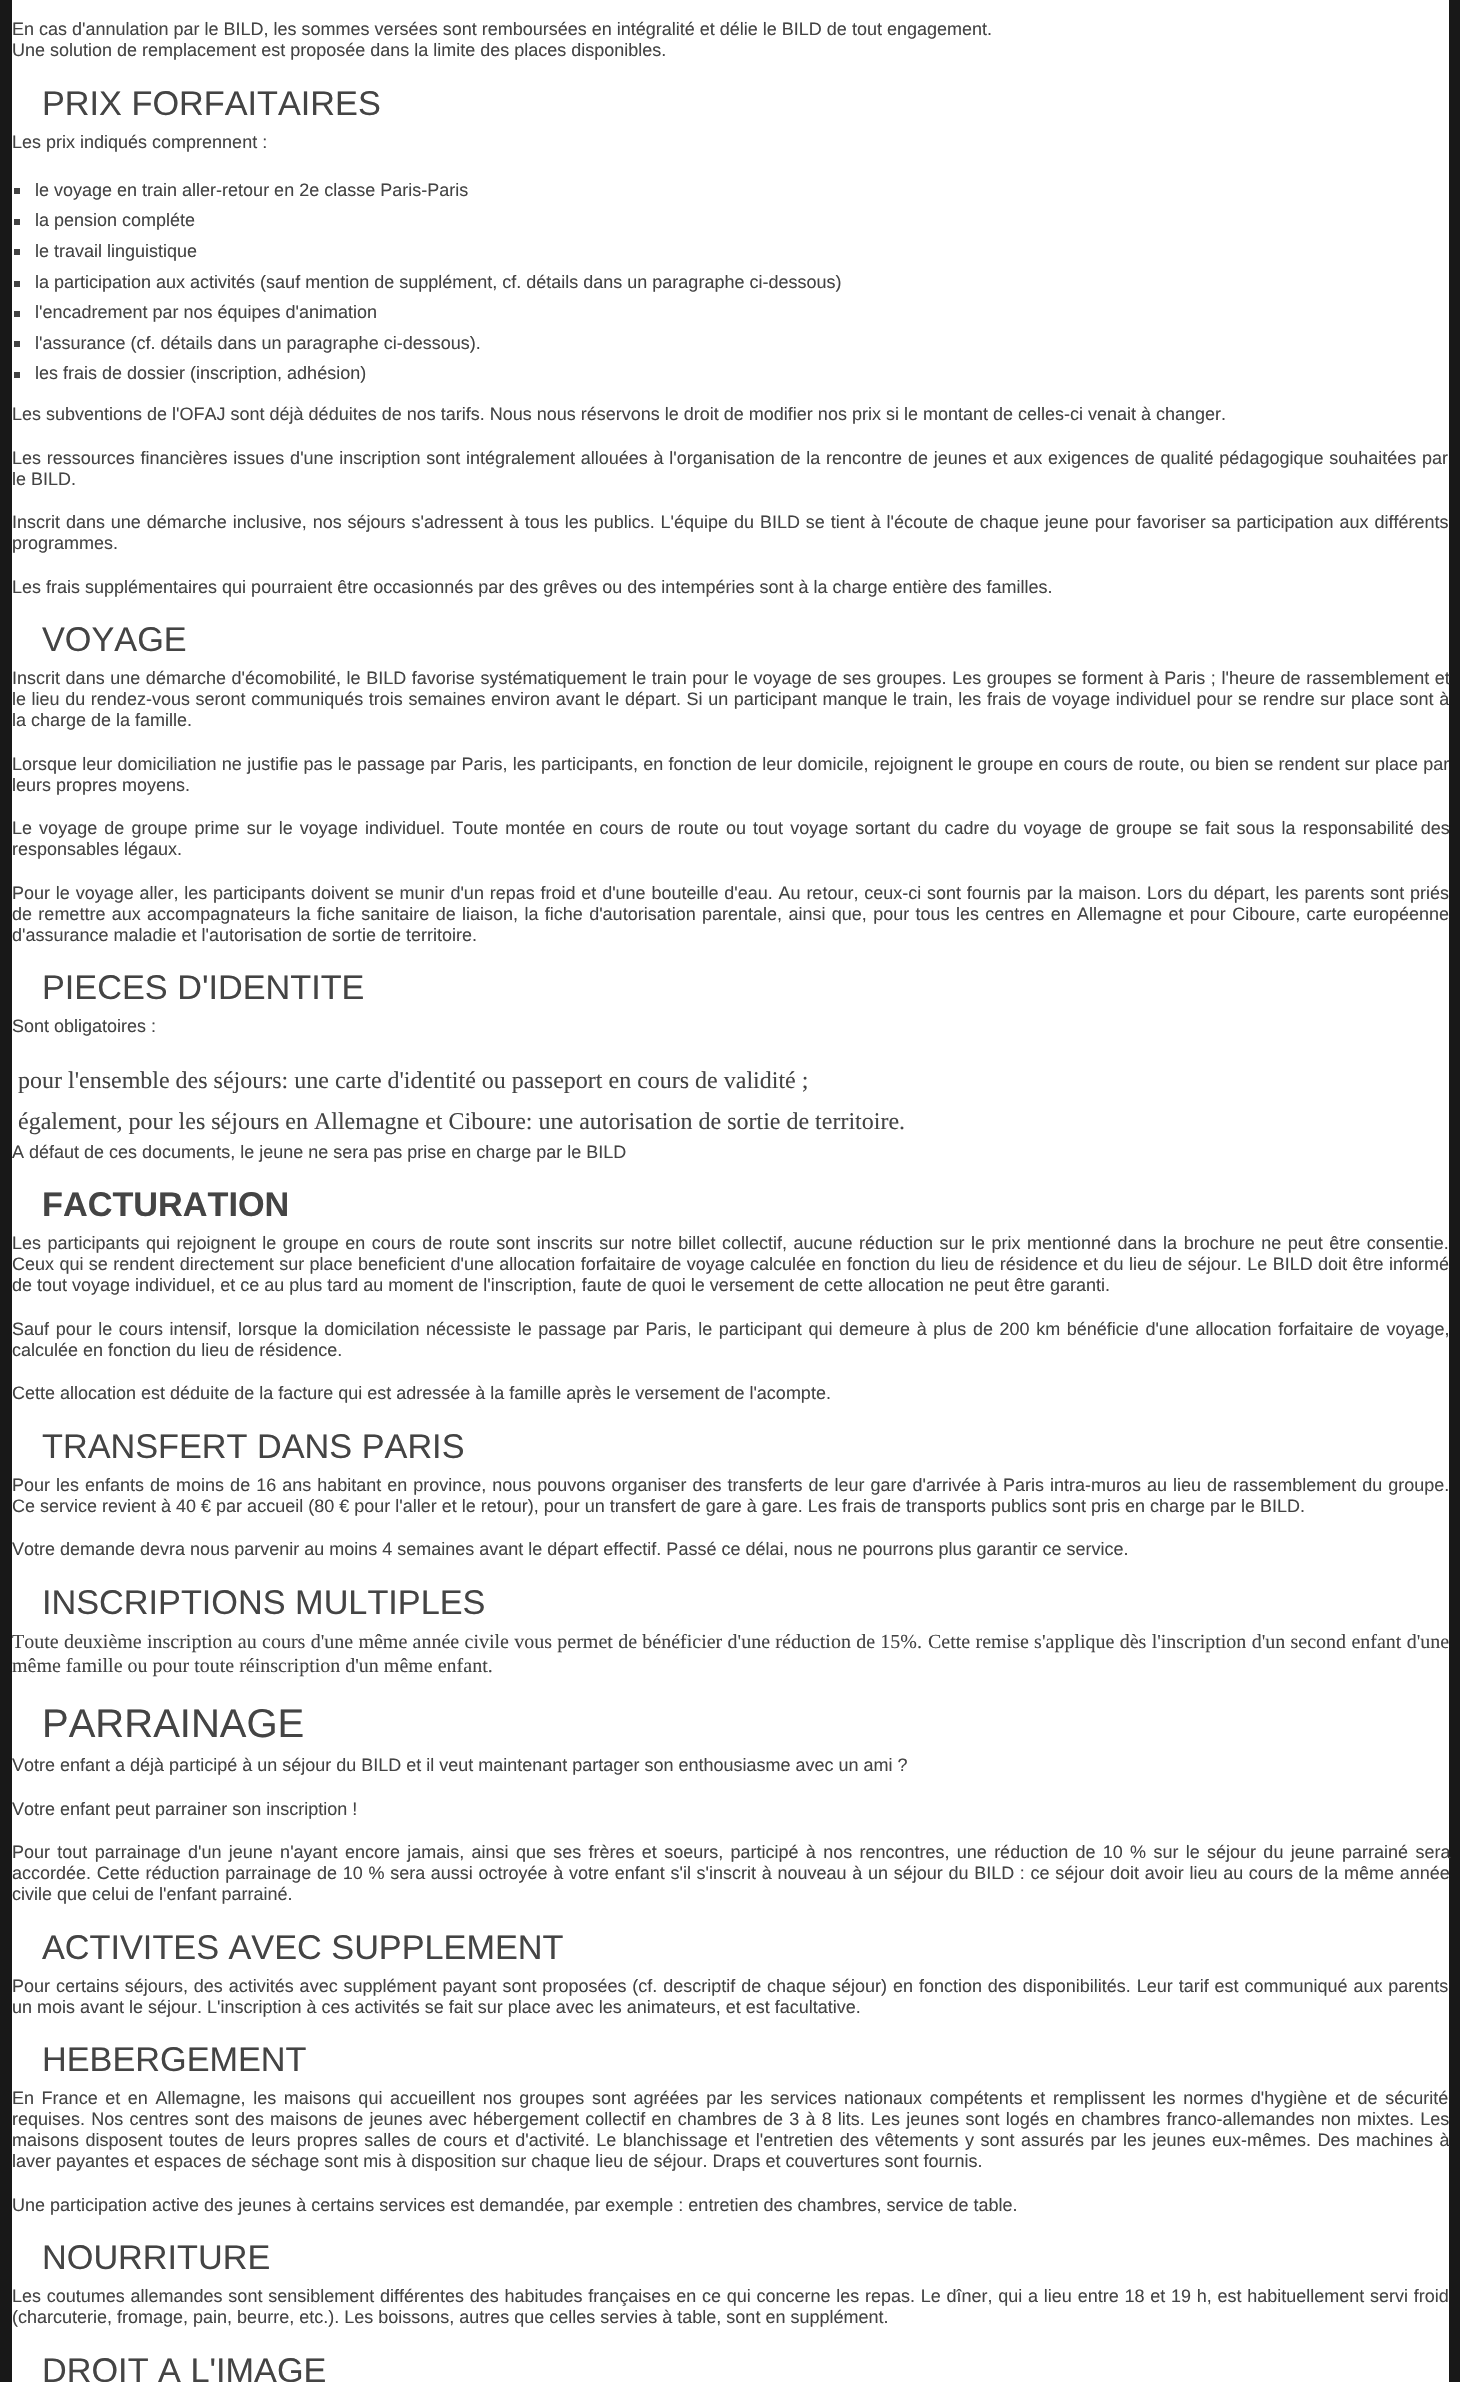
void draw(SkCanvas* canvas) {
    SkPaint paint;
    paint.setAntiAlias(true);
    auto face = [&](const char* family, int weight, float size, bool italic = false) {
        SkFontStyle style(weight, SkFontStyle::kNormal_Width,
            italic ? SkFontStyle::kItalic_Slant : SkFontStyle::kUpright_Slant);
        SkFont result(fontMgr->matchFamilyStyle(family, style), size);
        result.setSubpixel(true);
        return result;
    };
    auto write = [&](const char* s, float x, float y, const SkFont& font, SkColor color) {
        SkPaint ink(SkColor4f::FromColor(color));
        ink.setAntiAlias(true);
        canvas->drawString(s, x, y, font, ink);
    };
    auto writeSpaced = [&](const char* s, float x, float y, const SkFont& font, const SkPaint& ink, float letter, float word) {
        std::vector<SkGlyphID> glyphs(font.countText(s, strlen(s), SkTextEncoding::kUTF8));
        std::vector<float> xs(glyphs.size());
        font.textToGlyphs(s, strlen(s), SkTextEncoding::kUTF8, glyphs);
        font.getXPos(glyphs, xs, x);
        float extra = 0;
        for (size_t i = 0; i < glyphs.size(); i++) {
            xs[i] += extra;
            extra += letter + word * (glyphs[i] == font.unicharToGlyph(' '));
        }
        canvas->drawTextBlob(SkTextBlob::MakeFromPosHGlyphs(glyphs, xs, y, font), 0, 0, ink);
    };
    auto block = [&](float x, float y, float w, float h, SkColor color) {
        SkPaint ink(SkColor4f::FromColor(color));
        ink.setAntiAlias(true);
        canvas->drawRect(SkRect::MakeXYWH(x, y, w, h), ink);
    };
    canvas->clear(SkColorSetRGB(24, 24, 24));
    block(12, 0, 1437, 2382, SK_ColorWHITE);
    auto kFont1 = face("Liberation Sans", 400, 18);
    write("En cas d'annulation par le BILD, les sommes versées sont remboursées en intégralité et délie le BILD de tout engagement.", 12, 35, kFont1, SkColorSetRGB(68, 68, 68));
    write("Une solution de remplacement est proposée dans la limite des places disponibles.", 12, 56, kFont1, SkColorSetRGB(68, 68, 68));
    auto kFont2 = face("Liberation Sans", 400, 34.25f);
    write("PRIX FORFAITAIRES", 42, 115, kFont2, SkColorSetRGB(68, 68, 68));
    write("Les prix indiqués comprennent :", 12, 148, kFont1, SkColorSetRGB(68, 68, 68));
    block(14, 188, 6, 6, SkColorSetRGB(68, 68, 68));
    write("le voyage en train aller-retour en 2e classe Paris-Paris", 35, 196, kFont1, SkColorSetRGB(68, 68, 68));
    block(14, 219, 6, 6, SkColorSetRGB(68, 68, 68));
    write("la pension compléte", 35, 226, kFont1, SkColorSetRGB(68, 68, 68));
    block(14, 249, 6, 6, SkColorSetRGB(68, 68, 68));
    write("le travail linguistique", 35, 257, kFont1, SkColorSetRGB(68, 68, 68));
    block(14, 281, 6, 6, SkColorSetRGB(68, 68, 68));
    write("la participation aux activités (sauf mention de supplément, cf. détails dans un paragraphe ci-dessous)", 35, 288, kFont1, SkColorSetRGB(68, 68, 68));
    block(14, 311, 6, 6, SkColorSetRGB(68, 68, 68));
    write("l'encadrement par nos équipes d'animation", 35, 318, kFont1, SkColorSetRGB(68, 68, 68));
    block(14, 341, 6, 6, SkColorSetRGB(68, 68, 68));
    write("l'assurance (cf. détails dans un paragraphe ci-dessous).", 35, 349, kFont1, SkColorSetRGB(68, 68, 68));
    block(14, 372, 6, 6, SkColorSetRGB(68, 68, 68));
    write("les frais de dossier (inscription, adhésion)", 35, 379, kFont1, SkColorSetRGB(68, 68, 68));
    write("Les subventions de l'OFAJ sont déjà déduites de nos tarifs. Nous nous réservons le droit de modifier nos prix si le montant de celles-ci venait à changer.", 12, 420, kFont1, SkColorSetRGB(68, 68, 68));
    paint.setColor(SkColorSetRGB(68, 68, 68));
    writeSpaced("Les ressources financières issues d'une inscription sont intégralement allouées à l'organisation de la rencontre de jeunes et aux exigences de qualité pédagogique souhaitées par", 12, 464, kFont1, paint, 0, 0.75f);
    write("le BILD.", 12, 485, kFont1, SkColorSetRGB(68, 68, 68));
    writeSpaced("Inscrit dans une démarche inclusive, nos séjours s'adressent à tous les publics. L'équipe du BILD se tient à l'écoute de chaque jeune pour favoriser sa participation aux différents", 12, 528, kFont1, paint, 0, 0.9f);
    write("programmes.", 12, 549, kFont1, SkColorSetRGB(68, 68, 68));
    write("Les frais supplémentaires qui pourraient être occasionnés par des grêves ou des intempéries sont à la charge entière des familles.", 12, 593, kFont1, SkColorSetRGB(68, 68, 68));
    write("VOYAGE", 42, 651, kFont2, SkColorSetRGB(68, 68, 68));
    writeSpaced("Inscrit dans une démarche d'écomobilité, le BILD favorise systématiquement le train pour le voyage de ses groupes. Les groupes se forment à Paris ; l'heure de rassemblement et", 12, 684, kFont1, paint, 0, 0.6f);
    writeSpaced("le lieu du rendez-vous seront communiqués trois semaines environ avant le départ. Si un participant manque le train, les frais de voyage individuel pour se rendre sur place sont à", 12, 705, kFont1, paint, 0, 0.6f);
    write("la charge de la famille.", 12, 726, kFont1, SkColorSetRGB(68, 68, 68));
    writeSpaced("Lorsque leur domiciliation ne justifie pas le passage par Paris, les participants, en fonction de leur domicile, rejoignent le groupe en cours de route, ou bien se rendent sur place par", 12, 770, kFont1, paint, 0, 0.25f);
    write("leurs propres moyens.", 12, 791, kFont1, SkColorSetRGB(68, 68, 68));
    writeSpaced("Le voyage de groupe prime sur le voyage individuel. Toute montée en cours de route ou tout voyage sortant du cadre du voyage de groupe se fait sous la responsabilité des", 12, 834, kFont1, paint, 0, 2.1f);
    write("responsables légaux.", 12, 855, kFont1, SkColorSetRGB(68, 68, 68));
    writeSpaced("Pour le voyage aller, les participants doivent se munir d'un repas froid et d'une bouteille d'eau. Au retour, ceux-ci sont fournis par la maison. Lors du départ, les parents sont priés", 12, 899, kFont1, paint, 0, 0.8f);
    writeSpaced("de remettre aux accompagnateurs la fiche sanitaire de liaison, la fiche d'autorisation parentale, ainsi que, pour tous les centres en Allemagne et pour Ciboure, carte européenne", 12, 920, kFont1, paint, 0, 1.35f);
    write("d'assurance maladie et l'autorisation de sortie de territoire.", 12, 941, kFont1, SkColorSetRGB(68, 68, 68));
    write("PIECES D'IDENTITE", 42, 999, kFont2, SkColorSetRGB(68, 68, 68));
    write("Sont obligatoires :", 12, 1032, kFont1, SkColorSetRGB(68, 68, 68));
    auto kFont3 = face("Liberation Serif", 400, 24);
    write("pour l'ensemble des séjours: une carte d'identité ou passeport en cours de validité ;", 18, 1088, kFont3, SkColorSetRGB(68, 68, 68));
    write("également, pour les séjours en Allemagne et Ciboure: une autorisation de sortie de territoire.", 18, 1129, kFont3, SkColorSetRGB(68, 68, 68));
    write("A défaut de ces documents, le jeune ne sera pas prise en charge par le BILD", 12, 1158, kFont1, SkColorSetRGB(68, 68, 68));
    auto kFont4 = face("Liberation Sans", 700, 34.25f);
    write("FACTURATION", 42, 1216, kFont4, SkColorSetRGB(68, 68, 68));
    writeSpaced("Les participants qui rejoignent le groupe en cours de route sont inscrits sur notre billet collectif, aucune réduction sur le prix mentionné dans la brochure ne peut être consentie.", 12, 1249, kFont1, paint, 0, 1.5f);
    writeSpaced("Ceux qui se rendent directement sur place beneficient d'une allocation forfaitaire de voyage calculée en fonction du lieu de résidence et du lieu de séjour. Le BILD doit être informé", 12, 1270, kFont1, paint, 0, 0.4f);
    write("de tout voyage individuel, et ce au plus tard au moment de l'inscription, faute de quoi le versement de cette allocation ne peut être garanti.", 12, 1291, kFont1, SkColorSetRGB(68, 68, 68));
    writeSpaced("Sauf pour le cours intensif, lorsque la domicilation nécessiste le passage par Paris, le participant qui demeure à plus de 200 km bénéficie d'une allocation forfaitaire de voyage,", 12, 1335, kFont1, paint, 0, 1.6f);
    write("calculée en fonction du lieu de résidence.", 12, 1356, kFont1, SkColorSetRGB(68, 68, 68));
    write("Cette allocation est déduite de la facture qui est adressée à la famille après le versement de l'acompte.", 12, 1399, kFont1, SkColorSetRGB(68, 68, 68));
    write("TRANSFERT DANS PARIS", 42, 1458, kFont2, SkColorSetRGB(68, 68, 68));
    writeSpaced("Pour les enfants de moins de 16 ans habitant en province, nous pouvons organiser des transferts de leur gare d'arrivée à Paris intra-muros au lieu de rassemblement du groupe.", 12, 1491, kFont1, paint, 0, 1);
    write("Ce service revient à 40 € par accueil (80 € pour l'aller et le retour), pour un transfert de gare à gare. Les frais de transports publics sont pris en charge par le BILD.", 12, 1512, kFont1, SkColorSetRGB(68, 68, 68));
    write("Votre demande devra nous parvenir au moins 4 semaines avant le départ effectif. Passé ce délai, nous ne pourrons plus garantir ce service.", 12, 1555, kFont1, SkColorSetRGB(68, 68, 68));
    write("INSCRIPTIONS MULTIPLES", 42, 1614, kFont2, SkColorSetRGB(68, 68, 68));
    auto kFont5 = face("Liberation Serif", 400, 20);
    writeSpaced("Toute deuxième inscription au cours d'une même année civile vous permet de bénéficier d'une réduction de 15%.", 12, 1648, kFont5, paint, 0, 0.3f);
    writeSpaced("Cette remise s'applique dès l'inscription d'un second enfant d'une", 928, 1648, kFont5, paint, 0, 0.3f);
    write("même famille ou pour toute réinscription d'un même enfant.", 12, 1672, kFont5, SkColorSetRGB(68, 68, 68));
    auto kFont6 = face("Liberation Sans", 400, 40);
    write("PARRAINAGE", 42, 1737, kFont6, SkColorSetRGB(68, 68, 68));
    write("Votre enfant a déjà participé à un séjour du BILD et il veut maintenant partager son enthousiasme avec un ami ?", 12, 1771, kFont1, SkColorSetRGB(68, 68, 68));
    write("Votre enfant peut parrainer son inscription !", 12, 1815, kFont1, SkColorSetRGB(68, 68, 68));
    writeSpaced("Pour tout parrainage d'un jeune n'ayant encore jamais, ainsi que ses frères et soeurs, participé à nos rencontres, une réduction de 10 % sur le séjour du jeune parrainé sera", 12, 1858, kFont1, paint, 0, 2.3f);
    writeSpaced("accordée. Cette réduction parrainage de 10 % sera aussi octroyée à votre enfant s'il s'inscrit à nouveau à un séjour du BILD : ce séjour doit avoir lieu au cours de la même année", 12, 1879, kFont1, paint, 0, 0.7f);
    write("civile que celui de l'enfant parrainé.", 12, 1900, kFont1, SkColorSetRGB(68, 68, 68));
    write("ACTIVITES AVEC SUPPLEMENT", 42, 1959, kFont2, SkColorSetRGB(68, 68, 68));
    writeSpaced("Pour certains séjours, des activités avec supplément payant sont proposées (cf. descriptif de chaque séjour) en fonction des disponibilités. Leur tarif est communiqué aux parents", 12, 1992, kFont1, paint, 0, 0.9f);
    write("un mois avant le séjour. L'inscription à ces activités se fait sur place avec les animateurs, et est facultative.", 12, 2013, kFont1, SkColorSetRGB(68, 68, 68));
    write("HEBERGEMENT", 42, 2071, kFont2, SkColorSetRGB(68, 68, 68));
    writeSpaced("En France et en Allemagne, les maisons qui accueillent nos groupes sont agréées par les services nationaux compétents et remplissent les normes d'hygiène et de sécurité", 12, 2104, kFont1, paint, 0, 2.6f);
    writeSpaced("requises. Nos centres sont des maisons de jeunes avec hébergement collectif en chambres de 3 à 8 lits. Les jeunes sont logés en chambres franco-allemandes non mixtes. Les", 12, 2125, kFont1, paint, 0, 1.2f);
    writeSpaced("maisons disposent toutes de leurs propres salles de cours et d'activité. Le blanchissage et l'entretien des vêtements y sont assurés par les jeunes eux-mêmes. Des machines à", 12, 2146, kFont1, paint, 0, 1.5f);
    write("laver payantes et espaces de séchage sont mis à disposition sur chaque lieu de séjour. Draps et couvertures sont fournis.", 12, 2167, kFont1, SkColorSetRGB(68, 68, 68));
    write("Une participation active des jeunes à certains services est demandée, par exemple : entretien des chambres, service de table.", 12, 2211, kFont1, SkColorSetRGB(68, 68, 68));
    write("NOURRITURE", 42, 2269, kFont2, SkColorSetRGB(68, 68, 68));
    writeSpaced("Les coutumes allemandes sont sensiblement différentes des habitudes françaises en ce qui concerne les repas. Le dîner, qui a lieu entre 18 et 19 h, est habituellement servi froid", 12, 2302, kFont1, paint, 0, 0.75f);
    write("(charcuterie, fromage, pain, beurre, etc.). Les boissons, autres que celles servies à table, sont en supplément.", 12, 2323, kFont1, SkColorSetRGB(68, 68, 68));
    write("DROIT A L'IMAGE", 42, 2382, kFont2, SkColorSetRGB(68, 68, 68));
}
